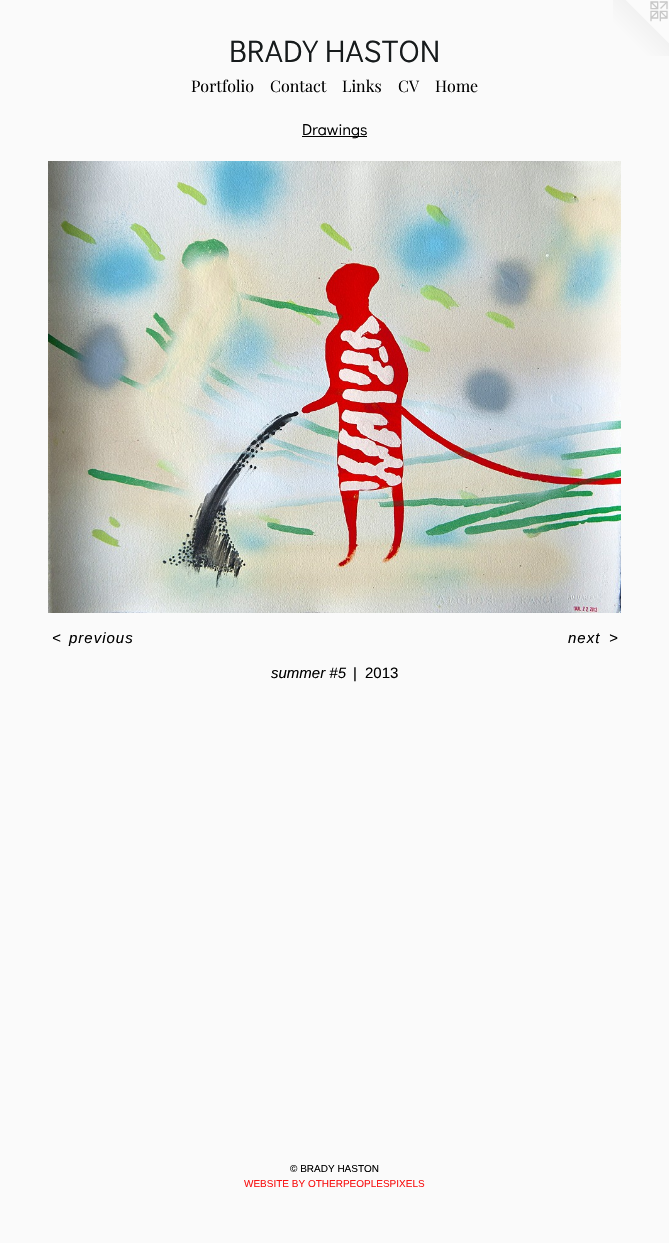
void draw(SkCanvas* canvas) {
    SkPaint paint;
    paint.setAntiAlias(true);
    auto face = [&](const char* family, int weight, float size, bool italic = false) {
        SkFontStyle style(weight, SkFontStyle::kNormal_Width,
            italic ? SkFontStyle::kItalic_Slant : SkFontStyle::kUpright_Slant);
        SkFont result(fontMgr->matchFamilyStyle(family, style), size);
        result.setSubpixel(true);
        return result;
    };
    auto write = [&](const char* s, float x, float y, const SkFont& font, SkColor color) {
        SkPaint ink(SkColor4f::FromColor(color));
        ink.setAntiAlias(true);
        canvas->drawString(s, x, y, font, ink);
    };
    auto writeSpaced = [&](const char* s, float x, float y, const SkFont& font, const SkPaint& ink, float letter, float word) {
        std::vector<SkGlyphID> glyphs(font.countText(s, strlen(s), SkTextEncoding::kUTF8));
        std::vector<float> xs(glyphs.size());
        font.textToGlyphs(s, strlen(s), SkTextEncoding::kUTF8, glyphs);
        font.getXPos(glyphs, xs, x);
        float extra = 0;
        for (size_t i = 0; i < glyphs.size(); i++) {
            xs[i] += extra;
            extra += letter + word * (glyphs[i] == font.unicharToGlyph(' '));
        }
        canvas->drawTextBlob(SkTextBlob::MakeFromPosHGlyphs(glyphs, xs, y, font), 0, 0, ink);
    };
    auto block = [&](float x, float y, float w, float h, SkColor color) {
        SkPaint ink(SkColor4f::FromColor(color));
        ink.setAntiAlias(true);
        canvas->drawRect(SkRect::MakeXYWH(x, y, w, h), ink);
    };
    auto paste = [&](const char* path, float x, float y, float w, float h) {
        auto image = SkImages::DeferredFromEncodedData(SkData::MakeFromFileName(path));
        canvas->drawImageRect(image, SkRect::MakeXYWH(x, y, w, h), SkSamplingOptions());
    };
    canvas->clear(SkColorSetRGB(250, 250, 250));
    auto kFont1 = face("Didact Gothic", 400, 31);
    write("BRADY HASTON", 229, 62, kFont1, SkColorSetRGB(23, 27, 28));
    paste("pic1.png", 613, 0, 56, 56);
    auto kFont2 = face("Playfair Display", 400, 16);
    write("Portfolio", 191, 92, kFont2, SK_ColorBLACK);
    write("Contact", 270, 92, kFont2, SK_ColorBLACK);
    write("Links", 342, 92, kFont2, SK_ColorBLACK);
    write("CV", 398, 92, kFont2, SK_ColorBLACK);
    write("Home", 435, 92, kFont2, SK_ColorBLACK);
    block(302, 136, 65, 1, SK_ColorBLACK);
    auto kFont3 = face("Didact Gothic", 400, 16);
    write("Drawings", 302, 135, kFont3, SK_ColorBLACK);
    paste("pic2.png", 48, 161, 573, 452);
    auto kFont4 = face("Liberation Sans", 400, 15, true);
    paint.setColor(SK_ColorBLACK);
    writeSpaced("<", 52, 643, kFont4, paint, 1, 0);
    writeSpaced("previous", 69, 643, kFont4, paint, 1, 0);
    writeSpaced("next", 568, 643, kFont4, paint, 1, 0);
    writeSpaced(">", 609, 643, kFont4, paint, 1, 0);
    write("summer #5", 271, 678, kFont4, SK_ColorBLACK);
    auto kFont5 = face("Liberation Sans", 400, 15);
    write("|", 353, 678, kFont5, SK_ColorBLACK);
    write("2013", 365, 678, kFont5, SK_ColorBLACK);
    auto kFont6 = face("Liberation Sans", 400, 10);
    write("© BRADY HASTON", 290, 1172, kFont6, SK_ColorBLACK);
    write("WEBSITE BY OTHERPEOPLESPIXELS", 244, 1187, kFont6, SkColorSetRGB(248, 22, 22));
}
